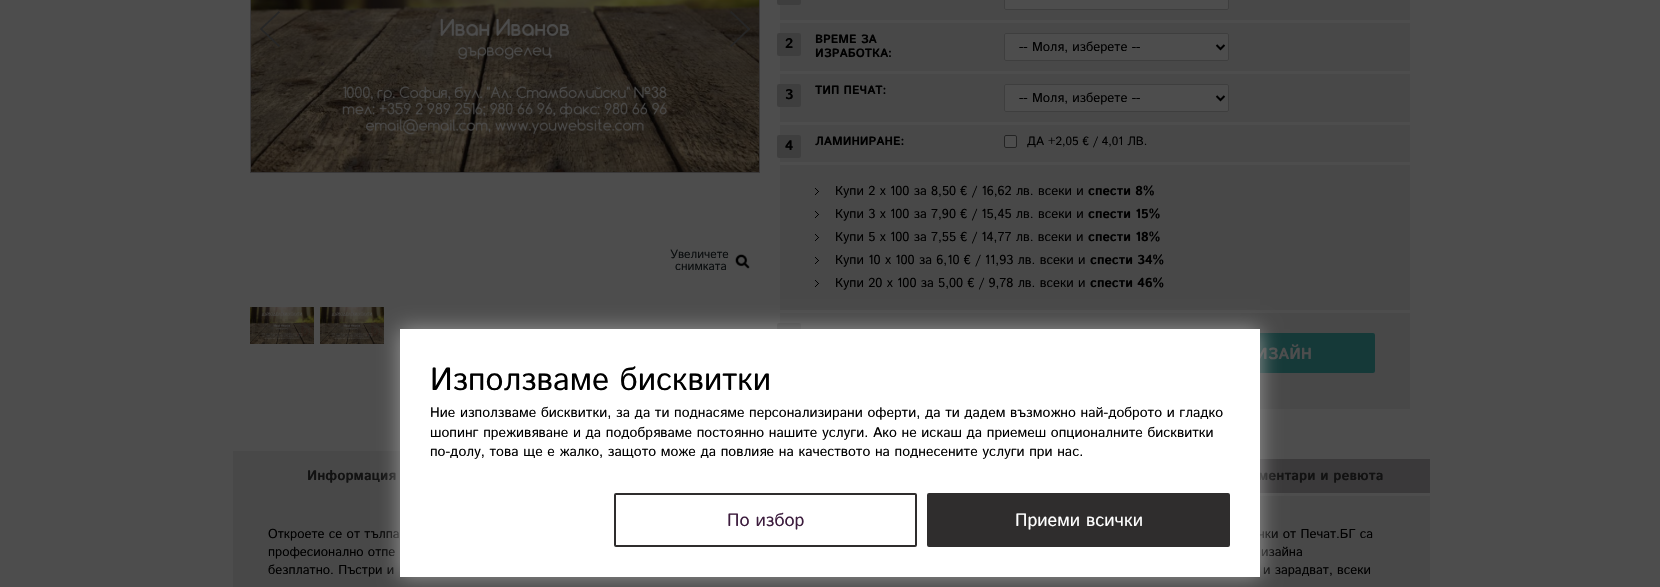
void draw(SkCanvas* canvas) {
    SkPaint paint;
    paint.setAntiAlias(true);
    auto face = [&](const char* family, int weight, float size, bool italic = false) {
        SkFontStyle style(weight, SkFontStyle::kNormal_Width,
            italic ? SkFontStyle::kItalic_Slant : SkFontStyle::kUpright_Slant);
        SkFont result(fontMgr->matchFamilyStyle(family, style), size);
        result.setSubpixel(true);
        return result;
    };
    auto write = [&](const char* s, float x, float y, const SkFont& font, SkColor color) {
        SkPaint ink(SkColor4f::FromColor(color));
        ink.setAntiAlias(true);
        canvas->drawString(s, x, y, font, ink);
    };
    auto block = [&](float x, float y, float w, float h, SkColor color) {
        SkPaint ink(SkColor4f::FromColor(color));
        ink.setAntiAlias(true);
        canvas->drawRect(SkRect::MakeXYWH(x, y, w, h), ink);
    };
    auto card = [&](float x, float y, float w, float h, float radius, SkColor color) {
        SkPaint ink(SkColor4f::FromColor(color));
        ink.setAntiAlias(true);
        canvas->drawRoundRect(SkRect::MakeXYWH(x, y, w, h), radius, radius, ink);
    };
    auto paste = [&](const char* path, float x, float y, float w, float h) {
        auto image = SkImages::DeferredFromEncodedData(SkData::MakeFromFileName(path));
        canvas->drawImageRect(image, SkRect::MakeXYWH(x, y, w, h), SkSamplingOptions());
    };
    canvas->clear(SkColorSetRGB(77, 77, 77));
    paint.setStyle(SkPaint::kStroke_Style);
    paint.setStrokeWidth(1);
    paint.setColor(SkColorSetRGB(58, 57, 58));
    canvas->drawRect(SkRect::MakeXYWH(250.5f, -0.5f, 509, 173), paint);
    paste("pic1.png", 251, 0, 508, 172);
    paste("pic2.png", 260, 11, 20, 36);
    paste("pic3.png", 730, 11, 20, 36);
    paste("pic4.png", 735, 254, 15, 15);
    auto kFont1 = face("Istok Web", 400, 12);
    write("Увеличете", 670, 258, kFont1, SkColorSetRGB(10, 13, 14));
    write("снимката", 675, 270, kFont1, SkColorSetRGB(10, 13, 14));
    paste("pic5.png", 250, 307, 64, 37);
    paste("pic5.png", 320, 307, 64, 37);
    block(780, 0, 630, 409, SkColorSetRGB(72, 72, 72));
    card(777, -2, 24, 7, 2, SkColorSetRGB(62, 62, 62));
    paint.setStyle(SkPaint::kFill_Style);
    paint.setColor(SkColorSetRGB(77, 77, 77));
    canvas->drawRoundRect(SkRect::MakeXYWH(1004.5f, -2.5f, 224, 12), 1.5f, 1.5f, paint);
    paint.setStyle(SkPaint::kStroke_Style);
    paint.setColor(SkColorSetRGB(62, 62, 62));
    canvas->drawRoundRect(SkRect::MakeXYWH(1004.5f, -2.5f, 224, 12), 1.5f, 1.5f, paint);
    block(780, 20, 630, 3, SkColorSetRGB(77, 77, 77));
    card(777, 33, 24, 23, 2, SkColorSetRGB(62, 62, 62));
    auto kFont2 = face("Istok Web", 700, 14);
    write("2", 785, 48, kFont2, SK_ColorBLACK);
    auto kFont3 = face("Istok Web", 700, 12);
    write("ВРЕМЕ ЗА", 815, 43, kFont3, SK_ColorBLACK);
    write("ИЗРАБОТКА:", 815, 57, kFont3, SK_ColorBLACK);
    paint.setStyle(SkPaint::kFill_Style);
    paint.setColor(SkColorSetRGB(77, 77, 77));
    canvas->drawRoundRect(SkRect::MakeXYWH(1004.5f, 33.5f, 224, 27), 1.5f, 1.5f, paint);
    paint.setStyle(SkPaint::kStroke_Style);
    paint.setColor(SkColorSetRGB(62, 62, 62));
    canvas->drawRoundRect(SkRect::MakeXYWH(1004.5f, 33.5f, 224, 27), 1.5f, 1.5f, paint);
    paint.setStrokeWidth(2);
    paint.setColor(SK_ColorBLACK);
    canvas->drawPath(SkPathBuilder().moveTo(1216.5f, 45).lineTo(1220.5f, 49).lineTo(1224.5f, 45).detach(), paint);
    auto kFont4 = face("Istok Web", 400, 13);
    write("-- Моля, изберете --", 1019, 51, kFont4, SK_ColorBLACK);
    block(780, 71, 630, 3, SkColorSetRGB(77, 77, 77));
    card(777, 84, 24, 23, 2, SkColorSetRGB(62, 62, 62));
    write("3", 785, 99, kFont2, SK_ColorBLACK);
    write("ТИП ПЕЧАТ:", 815, 94, kFont3, SK_ColorBLACK);
    paint.setStyle(SkPaint::kFill_Style);
    paint.setColor(SkColorSetRGB(77, 77, 77));
    canvas->drawRoundRect(SkRect::MakeXYWH(1004.5f, 84.5f, 224, 27), 1.5f, 1.5f, paint);
    paint.setStyle(SkPaint::kStroke_Style);
    paint.setStrokeWidth(1);
    paint.setColor(SkColorSetRGB(62, 62, 62));
    canvas->drawRoundRect(SkRect::MakeXYWH(1004.5f, 84.5f, 224, 27), 1.5f, 1.5f, paint);
    paint.setStrokeWidth(2);
    paint.setColor(SK_ColorBLACK);
    canvas->drawPath(SkPathBuilder().moveTo(1216.5f, 96).lineTo(1220.5f, 100).lineTo(1224.5f, 96).detach(), paint);
    write("-- Моля, изберете --", 1019, 102, kFont4, SK_ColorBLACK);
    block(780, 122, 630, 3, SkColorSetRGB(77, 77, 77));
    card(777, 135, 24, 23, 2, SkColorSetRGB(62, 62, 62));
    write("4", 785, 150, kFont2, SK_ColorBLACK);
    write("ЛАМИНИРАНЕ:", 815, 145, kFont3, SK_ColorBLACK);
    paint.setStyle(SkPaint::kFill_Style);
    paint.setColor(SkColorSetRGB(77, 77, 77));
    canvas->drawRoundRect(SkRect::MakeXYWH(1004.5f, 135.5f, 12, 12), 1.5f, 1.5f, paint);
    paint.setStyle(SkPaint::kStroke_Style);
    paint.setStrokeWidth(1);
    paint.setColor(SkColorSetRGB(35, 35, 35));
    canvas->drawRoundRect(SkRect::MakeXYWH(1004.5f, 135.5f, 12, 12), 1.5f, 1.5f, paint);
    write("ДА +2,05 € / 4,01 ЛВ.", 1027, 145, kFont1, SK_ColorBLACK);
    block(780, 162, 630, 3, SkColorSetRGB(77, 77, 77));
    paste("pic6.png", 815, 188, 4, 7);
    write("Купи 2 x 100 за 8,50 € / 16,62 лв. всеки и", 835, 195, kFont4, SK_ColorBLACK);
    auto kFont5 = face("Istok Web", 700, 13);
    write("спести 8%", 1088, 195, kFont5, SK_ColorBLACK);
    paste("pic6.png", 815, 211, 4, 7);
    write("Купи 3 x 100 за 7,90 € / 15,45 лв. всеки и", 835, 218, kFont4, SK_ColorBLACK);
    write("спести 15%", 1088, 218, kFont5, SK_ColorBLACK);
    paste("pic6.png", 815, 234, 4, 7);
    write("Купи 5 x 100 за 7,55 € / 14,77 лв. всеки и", 835, 241, kFont4, SK_ColorBLACK);
    write("спести 18%", 1088, 241, kFont5, SK_ColorBLACK);
    paste("pic6.png", 815, 257, 4, 7);
    write("Купи 10 x 100 за 6,10 € / 11,93 лв. всеки и", 835, 264, kFont4, SK_ColorBLACK);
    write("спести 34%", 1090, 264, kFont5, SK_ColorBLACK);
    paste("pic6.png", 815, 280, 4, 7);
    write("Купи 20 x 100 за 5,00 € / 9,78 лв. всеки и", 835, 287, kFont4, SK_ColorBLACK);
    write("спести 46%", 1090, 287, kFont5, SK_ColorBLACK);
    block(780, 310, 630, 3, SkColorSetRGB(77, 77, 77));
    card(777, 323, 24, 23, 2, SkColorSetRGB(62, 62, 62));
    card(1106, 333, 269, 40, 2, SkColorSetRGB(21, 57, 56));
    auto kFont6 = face("Istok Web", 700, 16);
    write("ИЗАЙН", 1256, 359, kFont6, SkColorSetRGB(77, 77, 77));
    block(233, 451, 167, 45, SkColorSetRGB(72, 72, 72));
    write("Информация", 307, 480, kFont2, SkColorSetRGB(18, 18, 18));
    block(1260, 459, 170, 34, SkColorSetRGB(58, 57, 58));
    write("ментари и ревюта", 1258, 480, kFont2, SkColorSetRGB(18, 18, 18));
    block(233, 496, 1197, 91, SkColorSetRGB(72, 72, 72));
    write("Откроете се от тълпа", 268, 538, kFont4, SK_ColorBLACK);
    write("чки от Печат.БГ са", 1258, 538, kFont4, SK_ColorBLACK);
    write("професионално отпе", 268, 556, kFont4, SK_ColorBLACK);
    write("изайна", 1261, 556, kFont4, SK_ColorBLACK);
    write("безплатно. Пъстри и", 268, 574, kFont4, SK_ColorBLACK);
    write("и зарадват, всеки", 1263, 574, kFont4, SK_ColorBLACK);
    paint.setStyle(SkPaint::kFill_Style);
    paint.setColor(SkColorSetRGB(153, 153, 153));
    paint.setMaskFilter(SkMaskFilter::MakeBlur(kNormal_SkBlurStyle, 10));
    canvas->drawRect(SkRect::MakeXYWH(400, 329, 860, 248), paint);
    paint.setMaskFilter(nullptr);
    block(400, 329, 860, 248, SK_ColorWHITE);
    auto kFont7 = face("Istok Web", 400, 32);
    write("Използваме бисквитки", 430, 390, kFont7, SK_ColorBLACK);
    auto kFont8 = face("Istok Web", 400, 14);
    write("Ние използваме бисквитки, за да ти поднасяме персонализирани оферти, да ти дадем възможно най-доброто и гладко", 430, 417, kFont8, SK_ColorBLACK);
    write("шопинг преживяване и да подобряваме постоянно нашите услуги. Ако не искаш да приемеш опционалните бисквитки", 430, 437, kFont8, SK_ColorBLACK);
    write("по-долу, това ще е жалко, защото може да повлияе на качеството на поднесените услуги при нас.", 430, 456, kFont8, SK_ColorBLACK);
    paint.setStyle(SkPaint::kStroke_Style);
    paint.setStrokeWidth(2);
    paint.setColor(SkColorSetRGB(47, 45, 45));
    canvas->drawRoundRect(SkRect::MakeXYWH(615, 494, 301, 52), 1, 1, paint);
    auto kFont9 = face("Istok Web", 400, 18);
    write("По избор", 727, 526, kFont9, SkColorSetRGB(61, 29, 62));
    paint.setStyle(SkPaint::kFill_Style);
    canvas->drawRoundRect(SkRect::MakeXYWH(928, 494, 301, 52), 1, 1, paint);
    paint.setStyle(SkPaint::kStroke_Style);
    canvas->drawRoundRect(SkRect::MakeXYWH(928, 494, 301, 52), 1, 1, paint);
    write("Приеми всички", 1015, 526, kFont9, SK_ColorWHITE);
}
